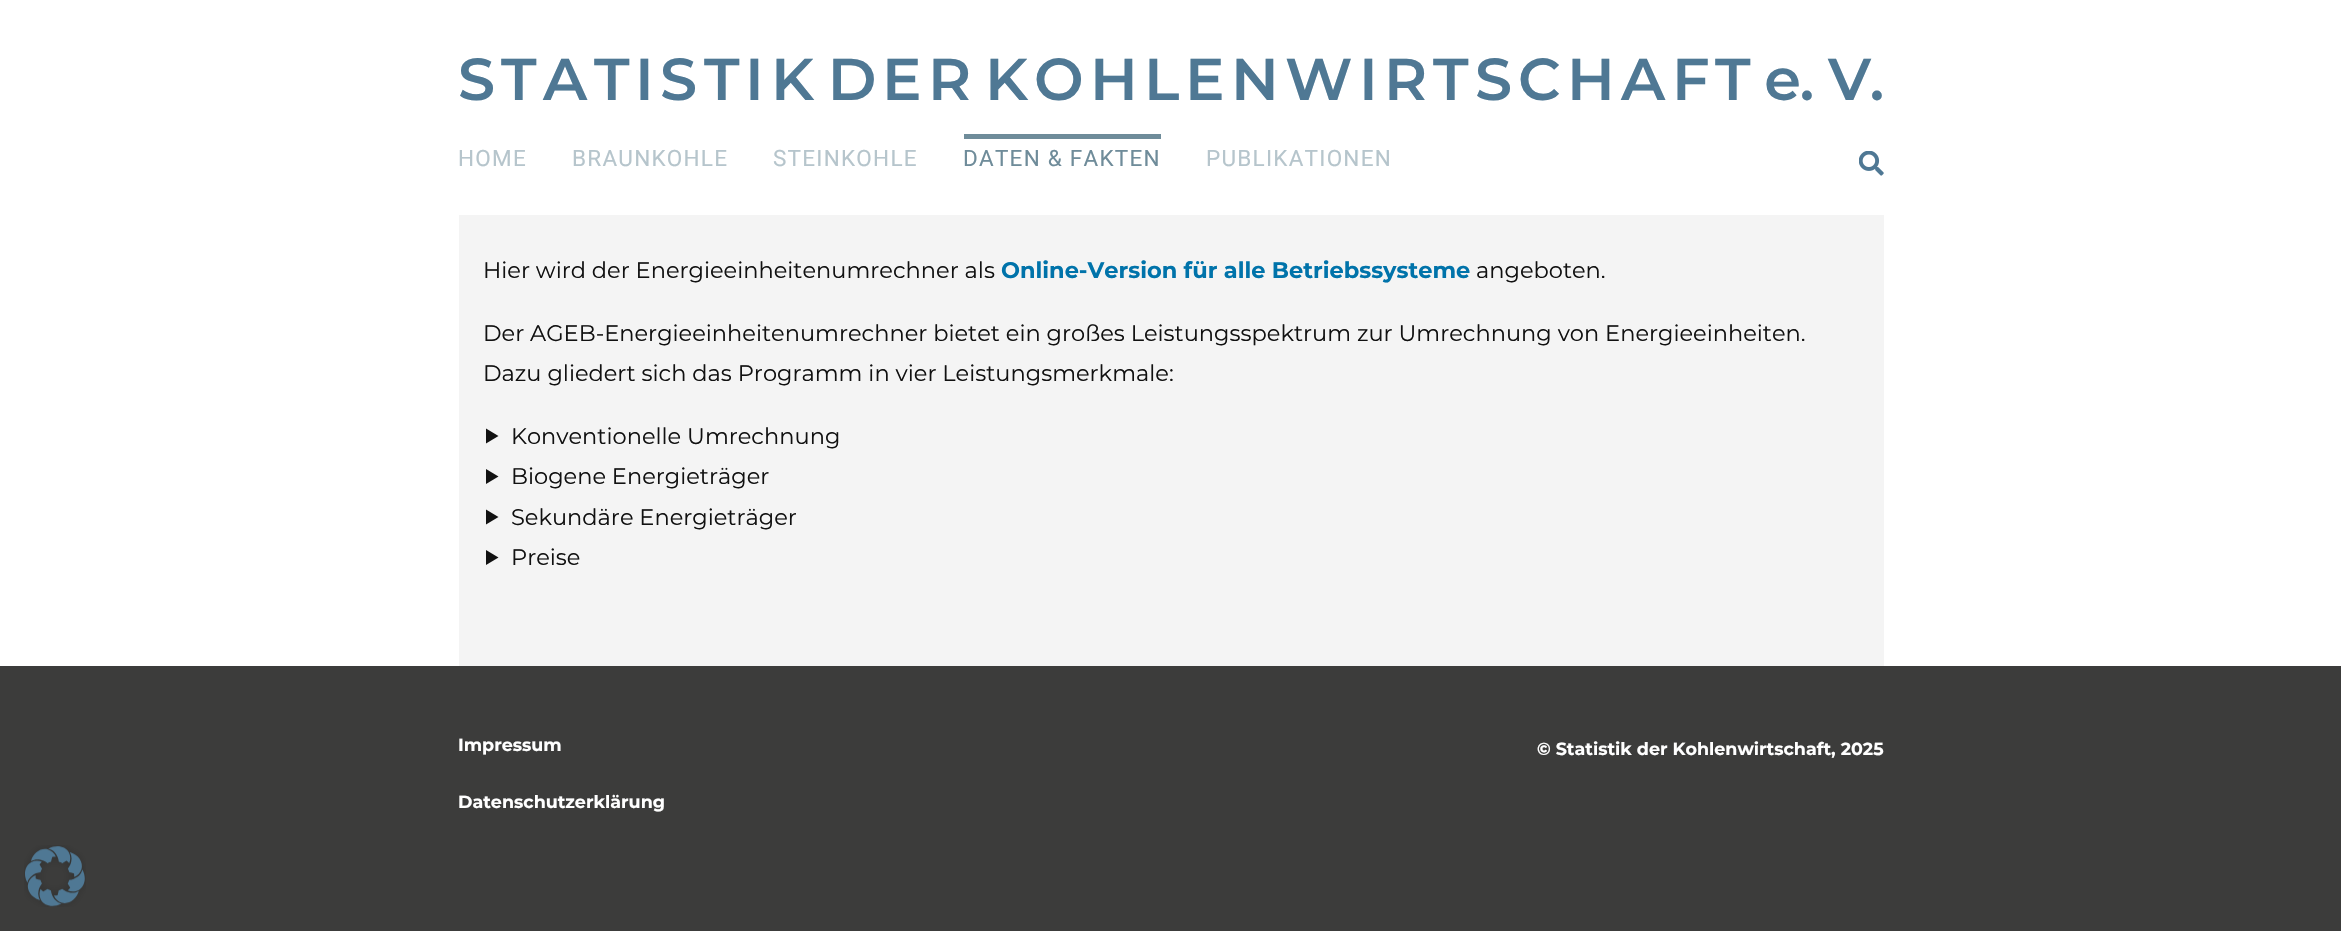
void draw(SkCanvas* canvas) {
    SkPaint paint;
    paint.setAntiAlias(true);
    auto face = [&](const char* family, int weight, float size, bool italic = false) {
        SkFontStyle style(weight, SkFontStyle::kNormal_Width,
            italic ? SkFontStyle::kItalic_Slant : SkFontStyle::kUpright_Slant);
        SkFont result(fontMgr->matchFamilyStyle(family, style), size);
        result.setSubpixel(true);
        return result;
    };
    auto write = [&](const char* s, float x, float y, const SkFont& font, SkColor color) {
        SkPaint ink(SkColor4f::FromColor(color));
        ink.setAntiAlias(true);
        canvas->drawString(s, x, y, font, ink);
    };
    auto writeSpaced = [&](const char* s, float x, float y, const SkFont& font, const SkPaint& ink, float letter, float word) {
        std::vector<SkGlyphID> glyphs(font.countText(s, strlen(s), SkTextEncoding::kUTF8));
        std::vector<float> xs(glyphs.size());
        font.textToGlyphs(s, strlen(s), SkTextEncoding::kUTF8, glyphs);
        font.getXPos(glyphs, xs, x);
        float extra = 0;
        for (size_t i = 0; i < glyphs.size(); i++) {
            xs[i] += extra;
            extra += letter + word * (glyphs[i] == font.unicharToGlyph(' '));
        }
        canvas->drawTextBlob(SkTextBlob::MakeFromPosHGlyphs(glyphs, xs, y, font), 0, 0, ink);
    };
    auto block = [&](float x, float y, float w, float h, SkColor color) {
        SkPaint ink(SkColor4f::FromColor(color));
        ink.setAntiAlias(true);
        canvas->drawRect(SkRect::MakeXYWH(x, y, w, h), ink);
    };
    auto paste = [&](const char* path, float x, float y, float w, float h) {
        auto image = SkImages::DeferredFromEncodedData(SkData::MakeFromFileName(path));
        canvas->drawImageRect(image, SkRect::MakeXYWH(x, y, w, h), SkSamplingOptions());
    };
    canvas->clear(SK_ColorWHITE);
    auto kFont1 = face("Montserrat", 600, 59);
    paint.setColor(SkColorSetRGB(79, 120, 148));
    writeSpaced("S", 458, 100, kFont1, paint, -1.25f, 0);
    writeSpaced("T", 501, 100, kFont1, paint, -1.25f, 0);
    writeSpaced("A", 543, 100, kFont1, paint, -1.25f, 0);
    writeSpaced("T", 594, 100, kFont1, paint, -1.25f, 0);
    writeSpaced("I", 635, 100, kFont1, paint, -1.25f, 0);
    writeSpaced("S", 660, 100, kFont1, paint, -1.25f, 0);
    writeSpaced("T", 704, 100, kFont1, paint, -1.25f, 0);
    writeSpaced("I", 745, 100, kFont1, paint, -1.25f, 0);
    writeSpaced("K D", 771, 100, kFont1, paint, -1.25f, 0);
    writeSpaced("E", 882, 100, kFont1, paint, -1.25f, 0);
    writeSpaced("R K", 928, 100, kFont1, paint, -1.25f, 0);
    writeSpaced("O", 1034, 100, kFont1, paint, -1.25f, 0);
    writeSpaced("H", 1090, 100, kFont1, paint, -1.25f, 0);
    writeSpaced("L", 1144, 100, kFont1, paint, -1.25f, 0);
    writeSpaced("E", 1185, 100, kFont1, paint, -1.25f, 0);
    writeSpaced("N", 1231, 100, kFont1, paint, -1.25f, 0);
    writeSpaced("W", 1285, 100, kFont1, paint, -1.25f, 0);
    writeSpaced("I", 1359, 100, kFont1, paint, -1.25f, 0);
    writeSpaced("R", 1384, 100, kFont1, paint, -1.25f, 0);
    writeSpaced("T", 1433, 100, kFont1, paint, -1.25f, 0);
    writeSpaced("S", 1475, 100, kFont1, paint, -1.25f, 0);
    writeSpaced("C", 1518, 100, kFont1, paint, -1.25f, 0);
    writeSpaced("H", 1567, 100, kFont1, paint, -1.25f, 0);
    writeSpaced("A", 1621, 100, kFont1, paint, -1.25f, 0);
    writeSpaced("F", 1672, 100, kFont1, paint, -1.25f, 0);
    writeSpaced("T e. V.", 1715, 100, kFont1, paint, -1.25f, 0);
    auto kFont2 = face("Roboto", 400, 22.5f);
    paint.setColor(SkColorSetRGB(182, 197, 204));
    writeSpaced("HOME", 458, 166, kFont2, paint, 1.25f, 0);
    writeSpaced("BRAUNKOHLE", 572, 166, kFont2, paint, 1.25f, 0);
    writeSpaced("STEINKOHLE", 773, 166, kFont2, paint, 1.25f, 0);
    block(964, 134, 197, 5, SkColorSetRGB(111, 140, 154));
    paint.setColor(SkColorSetRGB(111, 140, 154));
    writeSpaced("DATEN & FAKTEN", 963, 166, kFont2, paint, 1.25f, 0);
    paint.setColor(SkColorSetRGB(182, 197, 204));
    writeSpaced("PUBLIKATIONEN", 1206, 166, kFont2, paint, 1.25f, 0);
    paste("pic1.png", 1859, 151, 25, 25);
    block(459, 215, 1425, 451, SkColorSetRGB(244, 244, 244));
    auto kFont3 = face("Montserrat", 400, 22.5f);
    write("Hier wird der Energieeinheitenumrechner als", 483, 278, kFont3, SkColorSetRGB(17, 17, 17));
    auto kFont4 = face("Montserrat", 700, 22.5f);
    write("Online-Version für alle Betriebssysteme", 1001, 278, kFont4, SkColorSetRGB(0, 115, 170));
    write("angeboten.", 1476, 278, kFont3, SkColorSetRGB(17, 17, 17));
    write("Der AGEB-Energieeinheitenumrechner bietet ein großes Leistungsspektrum zur Umrechnung von Energieeinheiten.", 483, 341, kFont3, SkColorSetRGB(17, 17, 17));
    write("Dazu gliedert sich das Programm in vier Leistungsmerkmale:", 483, 381, kFont3, SkColorSetRGB(17, 17, 17));
    paint.setColor(SkColorSetRGB(17, 17, 17));
    canvas->drawPath(SkPathBuilder().moveTo(486, 428.5f).lineTo(498.5f, 436).lineTo(486, 443.5f).close().detach(), paint);
    write("Konventionelle Umrechnung", 511, 444, kFont3, SkColorSetRGB(17, 17, 17));
    canvas->drawPath(SkPathBuilder().moveTo(486, 469).lineTo(498.5f, 476.5f).lineTo(486, 484).close().detach(), paint);
    write("Biogene Energieträger", 511, 484, kFont3, SkColorSetRGB(17, 17, 17));
    canvas->drawPath(SkPathBuilder().moveTo(486, 509.5f).lineTo(498.5f, 517).lineTo(486, 524.5f).close().detach(), paint);
    write("Sekundäre Energieträger", 511, 525, kFont3, SkColorSetRGB(17, 17, 17));
    canvas->drawPath(SkPathBuilder().moveTo(486, 550).lineTo(498.5f, 557.5f).lineTo(486, 565).close().detach(), paint);
    write("Preise", 511, 565, kFont3, SkColorSetRGB(17, 17, 17));
    block(0, 666, 2341, 265, SkColorSetRGB(60, 60, 59));
    auto kFont5 = face("Montserrat", 700, 17.5f);
    write("Impressum", 458, 751, kFont5, SK_ColorWHITE);
    write("Datenschutzerklärung", 458, 808, kFont5, SK_ColorWHITE);
    write("© Statistik der Kohlenwirtschaft, 2025", 1537, 755, kFont5, SK_ColorWHITE);
    paste("pic2.png", 24, 845, 62, 62);
}
